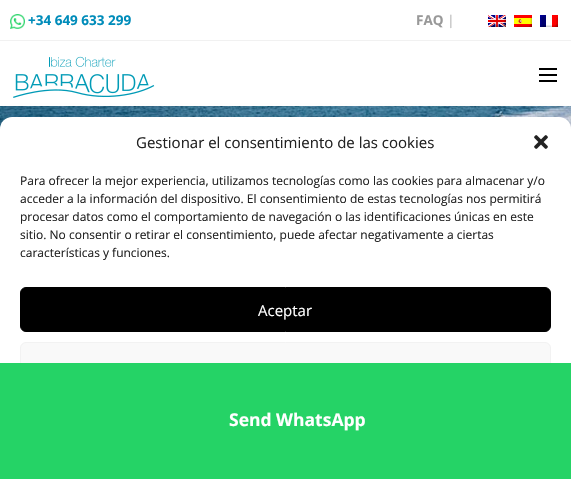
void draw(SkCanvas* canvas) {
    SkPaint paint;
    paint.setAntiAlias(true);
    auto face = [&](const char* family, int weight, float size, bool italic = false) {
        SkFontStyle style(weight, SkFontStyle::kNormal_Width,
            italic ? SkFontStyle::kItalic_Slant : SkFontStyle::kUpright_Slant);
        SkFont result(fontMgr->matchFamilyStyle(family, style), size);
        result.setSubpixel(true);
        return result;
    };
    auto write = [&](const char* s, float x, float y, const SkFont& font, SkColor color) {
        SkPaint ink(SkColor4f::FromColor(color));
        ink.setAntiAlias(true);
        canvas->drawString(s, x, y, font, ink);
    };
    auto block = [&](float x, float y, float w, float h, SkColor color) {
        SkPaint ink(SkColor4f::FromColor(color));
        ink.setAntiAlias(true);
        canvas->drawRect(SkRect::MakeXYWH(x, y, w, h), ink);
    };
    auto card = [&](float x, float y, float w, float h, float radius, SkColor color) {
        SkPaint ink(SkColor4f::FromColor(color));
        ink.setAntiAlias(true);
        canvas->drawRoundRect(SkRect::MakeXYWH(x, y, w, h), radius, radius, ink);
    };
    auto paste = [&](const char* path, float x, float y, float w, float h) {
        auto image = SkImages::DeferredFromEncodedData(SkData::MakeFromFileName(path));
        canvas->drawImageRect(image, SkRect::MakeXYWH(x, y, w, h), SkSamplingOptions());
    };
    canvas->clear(SK_ColorWHITE);
    paste("pic7.png", 0, 106, 571, 23);
    canvas->save();
    canvas->clipRect(SkRect::MakeXYWH(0, 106, 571, 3));
    paint.setColor(SkColorSetARGB(51, 57, 70, 78));
    paint.setMaskFilter(SkMaskFilter::MakeBlur(kNormal_SkBlurStyle, 2.5f));
    canvas->drawRect(SkRect::MakeXYWH(0, 0, 571, 106), paint);
    paint.setMaskFilter(nullptr);
    canvas->restore();
    block(0, 40, 571, 1, SkColorSetRGB(241, 241, 241));
    paste("pic1.png", 10, 14, 15, 15);
    auto kFont1 = face("Open Sans", 700, 13.5f);
    write("+34 649 633 299", 28, 25, kFont1, SkColorSetRGB(0, 140, 186));
    write("FAQ", 416, 25, kFont1, SkColorSetRGB(153, 153, 153));
    write("|", 447, 25, kFont1, SkColorSetRGB(204, 204, 204));
    paste("pic2.png", 488, 15, 18, 12);
    paste("pic3.png", 514, 15, 18, 12);
    paste("pic4.png", 540, 15, 18, 12);
    paste("pic5.png", 13, 56, 142, 42);
    block(539, 80, 18, 2, SK_ColorBLACK);
    block(539, 74, 18, 2, SK_ColorBLACK);
    block(539, 68, 18, 2, SK_ColorBLACK);
    paint.setColor(SkColorSetARGB(48, 0, 0, 0));
    paint.setMaskFilter(SkMaskFilter::MakeBlur(kNormal_SkBlurStyle, 10));
    canvas->drawRoundRect(SkRect::MakeXYWH(0, 127, 571, 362), 12, 12, paint);
    paint.setMaskFilter(nullptr);
    card(0, 117, 571, 362, 12, SK_ColorWHITE);
    auto kFont2 = face("Open Sans", 400, 15);
    write("Gestionar el consentimiento de las cookies", 136, 148, kFont2, SkColorSetRGB(34, 34, 34));
    paste("pic6.png", 534, 135, 14, 14);
    auto kFont3 = face("Open Sans", 400, 12);
    write("Para ofrecer la mejor experiencia, utilizamos tecnologías como las cookies para almacenar y/o", 20, 185, kFont3, SkColorSetRGB(34, 34, 34));
    write("acceder a la información del dispositivo. El consentimiento de estas tecnologías nos permitirá", 20, 203, kFont3, SkColorSetRGB(34, 34, 34));
    write("procesar datos como el comportamiento de navegación o las identificaciones únicas en este", 20, 221, kFont3, SkColorSetRGB(34, 34, 34));
    write("sitio. No consentir o retirar el consentimiento, puede afectar negativamente a ciertas", 20, 239, kFont3, SkColorSetRGB(34, 34, 34));
    write("características y funciones.", 20, 257, kFont3, SkColorSetRGB(34, 34, 34));
    paint.setColor(SK_ColorBLACK);
    canvas->drawRoundRect(SkRect::MakeXYWH(20.5f, 287.5f, 530, 44), 5.5f, 5.5f, paint);
    paint.setStyle(SkPaint::kStroke_Style);
    paint.setStrokeWidth(1);
    canvas->drawRoundRect(SkRect::MakeXYWH(20.5f, 287.5f, 530, 44), 5.5f, 5.5f, paint);
    write("Aceptar", 258, 316, kFont2, SK_ColorWHITE);
    paint.setStyle(SkPaint::kFill_Style);
    paint.setColor(SkColorSetRGB(249, 249, 249));
    canvas->drawRoundRect(SkRect::MakeXYWH(20.5f, 342.5f, 530, 44), 5.5f, 5.5f, paint);
    paint.setStyle(SkPaint::kStroke_Style);
    paint.setColor(SkColorSetRGB(242, 242, 242));
    canvas->drawRoundRect(SkRect::MakeXYWH(20.5f, 342.5f, 530, 44), 5.5f, 5.5f, paint);
    block(0, 363, 571, 116, SkColorSetRGB(37, 211, 102));
    auto kFont4 = face("Open Sans", 700, 17.5f);
    write("Send WhatsApp", 229, 426, kFont4, SK_ColorWHITE);
}
